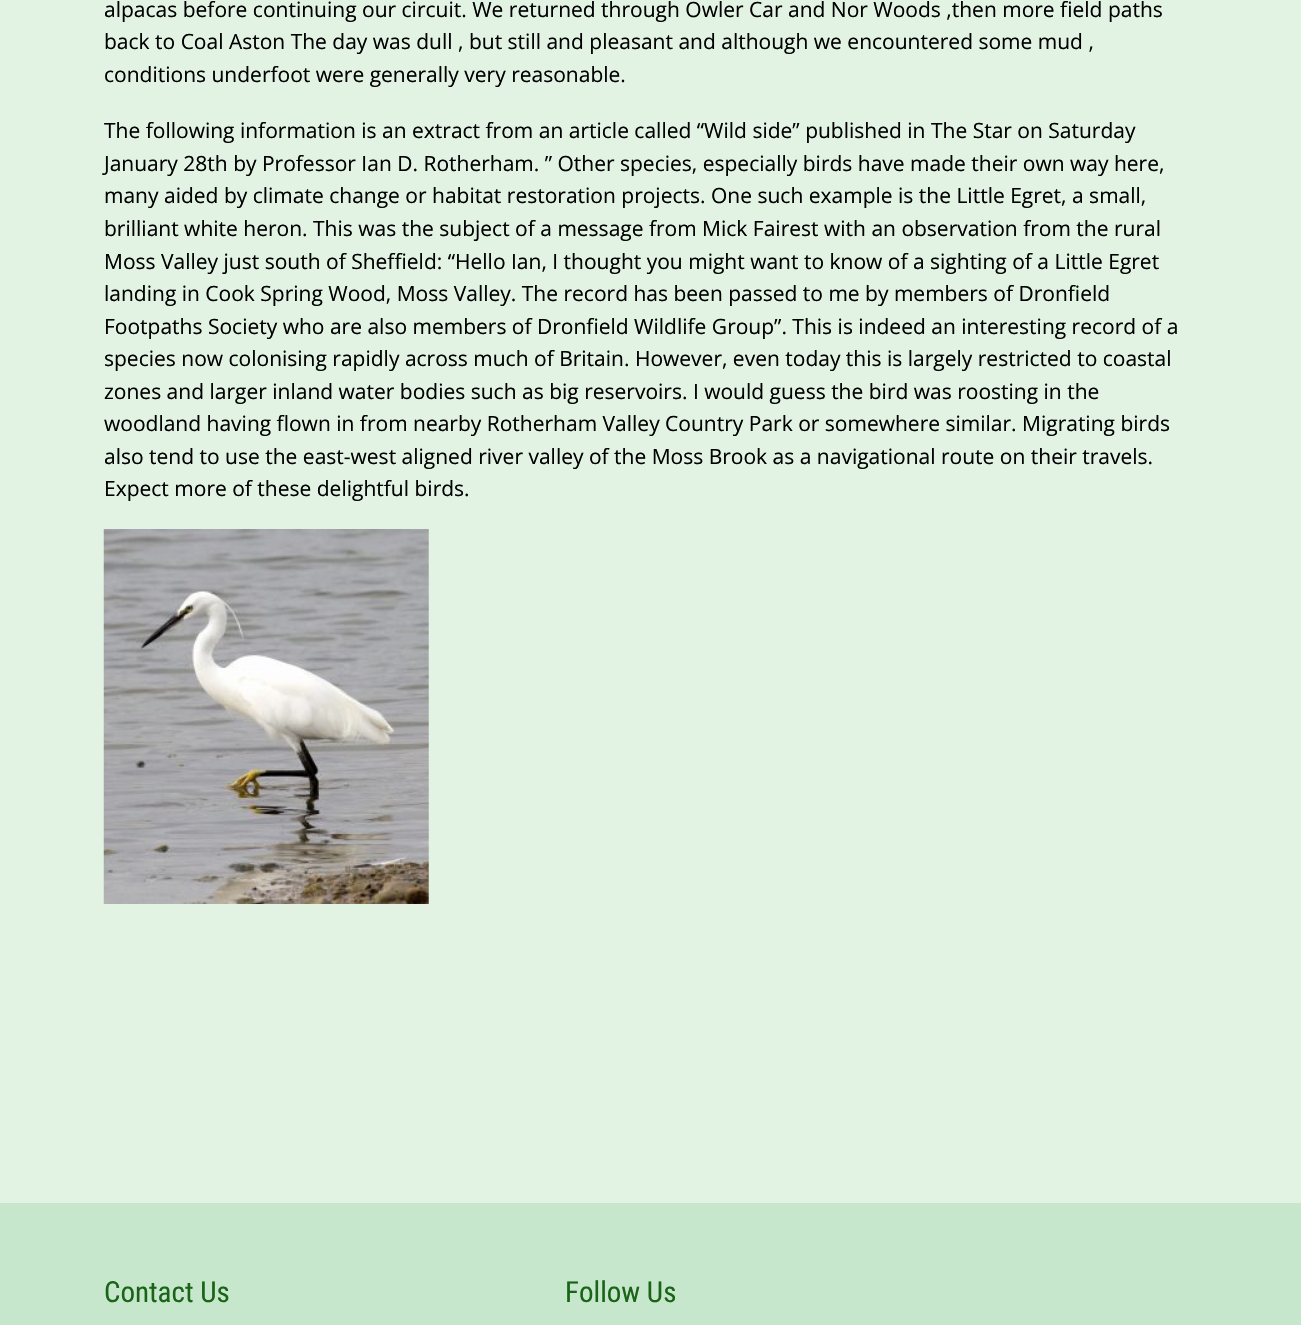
void draw(SkCanvas* canvas) {
    SkPaint paint;
    paint.setAntiAlias(true);
    auto face = [&](const char* family, int weight, float size, bool italic = false) {
        SkFontStyle style(weight, SkFontStyle::kNormal_Width,
            italic ? SkFontStyle::kItalic_Slant : SkFontStyle::kUpright_Slant);
        SkFont result(fontMgr->matchFamilyStyle(family, style), size);
        result.setSubpixel(true);
        return result;
    };
    auto write = [&](const char* s, float x, float y, const SkFont& font, SkColor color) {
        SkPaint ink(SkColor4f::FromColor(color));
        ink.setAntiAlias(true);
        canvas->drawString(s, x, y, font, ink);
    };
    auto block = [&](float x, float y, float w, float h, SkColor color) {
        SkPaint ink(SkColor4f::FromColor(color));
        ink.setAntiAlias(true);
        canvas->drawRect(SkRect::MakeXYWH(x, y, w, h), ink);
    };
    auto paste = [&](const char* path, float x, float y, float w, float h) {
        auto image = SkImages::DeferredFromEncodedData(SkData::MakeFromFileName(path));
        canvas->drawImageRect(image, SkRect::MakeXYWH(x, y, w, h), SkSamplingOptions());
    };
    canvas->clear(SkColorSetRGB(226, 243, 228));
    auto kFont1 = face("Open Sans", 400, 21);
    write("alpacas before continuing our circuit. We returned through Owler Car and Nor Woods ,then more field paths", 104, 17, kFont1, SK_ColorBLACK);
    write("back to Coal Aston The day was dull , but still and pleasant and although we encountered some mud ,", 104, 49, kFont1, SK_ColorBLACK);
    write("conditions underfoot were generally very reasonable.", 104, 82, kFont1, SK_ColorBLACK);
    write("The following information is an extract from an article called “Wild side” published in The Star on Saturday", 104, 138, kFont1, SK_ColorBLACK);
    write("January 28th by Professor Ian D. Rotherham. ” Other species, especially birds have made their own way here,", 104, 171, kFont1, SK_ColorBLACK);
    write("many aided by climate change or habitat restoration projects. One such example is the Little Egret, a small,", 104, 203, kFont1, SK_ColorBLACK);
    write("brilliant white heron. This was the subject of a message from Mick Fairest with an observation from the rural", 104, 236, kFont1, SK_ColorBLACK);
    write("Moss Valley just south of Sheffield: “Hello Ian, I thought you might want to know of a sighting of a Little Egret", 104, 269, kFont1, SK_ColorBLACK);
    write("landing in Cook Spring Wood, Moss Valley. The record has been passed to me by members of Dronfield", 104, 301, kFont1, SK_ColorBLACK);
    write("Footpaths Society who are also members of Dronfield Wildlife Group”. This is indeed an interesting record of a", 104, 334, kFont1, SK_ColorBLACK);
    write("species now colonising rapidly across much of Britain. However, even today this is largely restricted to coastal", 104, 366, kFont1, SK_ColorBLACK);
    write("zones and larger inland water bodies such as big reservoirs. I would guess the bird was roosting in the", 104, 399, kFont1, SK_ColorBLACK);
    write("woodland having flown in from nearby Rotherham Valley Country Park or somewhere similar. Migrating birds", 104, 431, kFont1, SK_ColorBLACK);
    write("also tend to use the east-west aligned river valley of the Moss Brook as a navigational route on their travels.", 104, 464, kFont1, SK_ColorBLACK);
    write("Expect more of these delightful birds.", 104, 496, kFont1, SK_ColorBLACK);
    paste("pic1.png", 103, 529, 326, 375);
    block(0, 1203, 1301, 122, SkColorSetRGB(198, 231, 204));
    auto kFont2 = face("Roboto Condensed", 400, 29);
    write("Contact Us", 104, 1302, kFont2, SkColorSetRGB(25, 100, 22));
    write("Follow Us", 565, 1302, kFont2, SkColorSetRGB(25, 100, 22));
}
